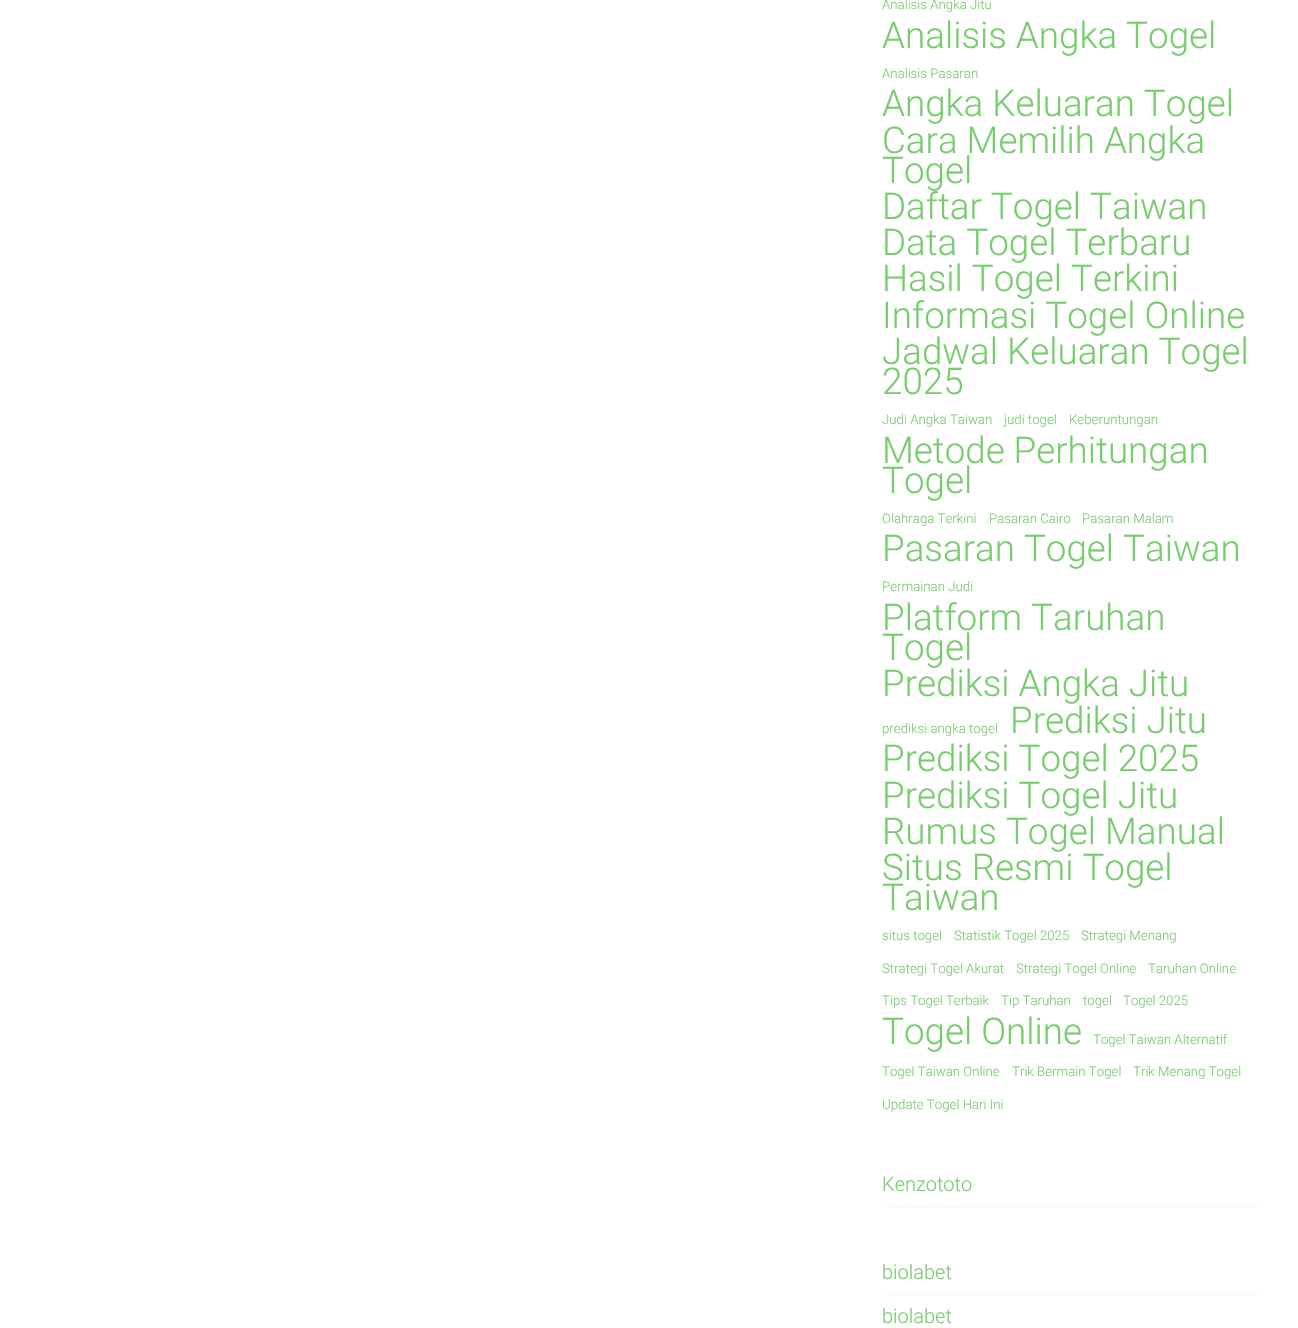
void draw(SkCanvas* canvas) {
    SkPaint paint;
    paint.setAntiAlias(true);
    auto face = [&](const char* family, int weight, float size, bool italic = false) {
        SkFontStyle style(weight, SkFontStyle::kNormal_Width,
            italic ? SkFontStyle::kItalic_Slant : SkFontStyle::kUpright_Slant);
        SkFont result(fontMgr->matchFamilyStyle(family, style), size);
        result.setSubpixel(true);
        return result;
    };
    auto write = [&](const char* s, float x, float y, const SkFont& font, SkColor color) {
        SkPaint ink(SkColor4f::FromColor(color));
        ink.setAntiAlias(true);
        canvas->drawString(s, x, y, font, ink);
    };
    auto block = [&](float x, float y, float w, float h, SkColor color) {
        SkPaint ink(SkColor4f::FromColor(color));
        ink.setAntiAlias(true);
        canvas->drawRect(SkRect::MakeXYWH(x, y, w, h), ink);
    };
    canvas->clear(SK_ColorWHITE);
    auto kFont1 = face("Roboto", 300, 13.25f);
    write("Analisis Angka Jitu", 882, 9, kFont1, SkColorSetRGB(119, 204, 109));
    auto kFont2 = face("Roboto", 300, 36.75f);
    write("Analisis Angka Togel", 882, 48, kFont2, SkColorSetRGB(119, 204, 109));
    write("Analisis Pasaran", 882, 78, kFont1, SkColorSetRGB(119, 204, 109));
    write("Angka Keluaran Togel", 882, 116, kFont2, SkColorSetRGB(119, 204, 109));
    write("Cara Memilih Angka", 882, 153, kFont2, SkColorSetRGB(119, 204, 109));
    write("Togel", 882, 183, kFont2, SkColorSetRGB(119, 204, 109));
    write("Daftar Togel Taiwan", 882, 219, kFont2, SkColorSetRGB(119, 204, 109));
    write("Data Togel Terbaru", 882, 255, kFont2, SkColorSetRGB(119, 204, 109));
    write("Hasil Togel Terkini", 882, 291, kFont2, SkColorSetRGB(119, 204, 109));
    write("Informasi Togel Online", 882, 328, kFont2, SkColorSetRGB(119, 204, 109));
    write("Jadwal Keluaran Togel", 882, 364, kFont2, SkColorSetRGB(119, 204, 109));
    write("2025", 882, 394, kFont2, SkColorSetRGB(119, 204, 109));
    write("Judi Angka Taiwan", 882, 424, kFont1, SkColorSetRGB(119, 204, 109));
    write("judi togel", 1004, 424, kFont1, SkColorSetRGB(119, 204, 109));
    write("Keberuntungan", 1069, 424, kFont1, SkColorSetRGB(119, 204, 109));
    write("Metode Perhitungan", 882, 463, kFont2, SkColorSetRGB(119, 204, 109));
    write("Togel", 882, 493, kFont2, SkColorSetRGB(119, 204, 109));
    write("Olahraga Terkini", 882, 523, kFont1, SkColorSetRGB(119, 204, 109));
    write("Pasaran Cairo", 989, 523, kFont1, SkColorSetRGB(119, 204, 109));
    write("Pasaran Malam", 1082, 523, kFont1, SkColorSetRGB(119, 204, 109));
    write("Pasaran Togel Taiwan", 882, 561, kFont2, SkColorSetRGB(119, 204, 109));
    write("Permainan Judi", 882, 591, kFont1, SkColorSetRGB(119, 204, 109));
    write("Platform Taruhan", 882, 630, kFont2, SkColorSetRGB(119, 204, 109));
    write("Togel", 882, 660, kFont2, SkColorSetRGB(119, 204, 109));
    write("Prediksi Angka Jitu", 882, 696, kFont2, SkColorSetRGB(119, 204, 109));
    write("prediksi angka togel", 882, 733, kFont1, SkColorSetRGB(119, 204, 109));
    write("Prediksi Jitu", 1010, 733, kFont2, SkColorSetRGB(119, 204, 109));
    write("Prediksi Togel 2025", 882, 771, kFont2, SkColorSetRGB(119, 204, 109));
    write("Prediksi Togel Jitu", 882, 808, kFont2, SkColorSetRGB(119, 204, 109));
    write("Rumus Togel Manual", 882, 844, kFont2, SkColorSetRGB(119, 204, 109));
    write("Situs Resmi Togel", 882, 880, kFont2, SkColorSetRGB(119, 204, 109));
    write("Taiwan", 882, 910, kFont2, SkColorSetRGB(119, 204, 109));
    write("situs togel", 882, 940, kFont1, SkColorSetRGB(119, 204, 109));
    write("Statistik Togel 2025", 954, 940, kFont1, SkColorSetRGB(119, 204, 109));
    write("Strategi Menang", 1081, 940, kFont1, SkColorSetRGB(119, 204, 109));
    write("Strategi Togel Akurat", 882, 973, kFont1, SkColorSetRGB(119, 204, 109));
    write("Strategi Togel Online", 1016, 973, kFont1, SkColorSetRGB(119, 204, 109));
    write("Taruhan Online", 1148, 973, kFont1, SkColorSetRGB(119, 204, 109));
    write("Tips Togel Terbaik", 882, 1005, kFont1, SkColorSetRGB(119, 204, 109));
    write("Tip Taruhan", 1001, 1005, kFont1, SkColorSetRGB(119, 204, 109));
    write("togel", 1083, 1005, kFont1, SkColorSetRGB(119, 204, 109));
    write("Togel 2025", 1123, 1005, kFont1, SkColorSetRGB(119, 204, 109));
    write("Togel Online", 882, 1044, kFont2, SkColorSetRGB(119, 204, 109));
    write("Togel Taiwan Alternatif", 1093, 1044, kFont1, SkColorSetRGB(119, 204, 109));
    write("Togel Taiwan Online", 882, 1076, kFont1, SkColorSetRGB(119, 204, 109));
    write("Trik Bermain Togel", 1012, 1076, kFont1, SkColorSetRGB(119, 204, 109));
    write("Trik Menang Togel", 1133, 1076, kFont1, SkColorSetRGB(119, 204, 109));
    write("Update Togel Hari Ini", 882, 1109, kFont1, SkColorSetRGB(119, 204, 109));
    block(883, 1206, 377, 1, SkColorSetRGB(248, 248, 248));
    auto kFont3 = face("Roboto", 300, 20);
    write("Kenzototo", 882, 1191, kFont3, SkColorSetRGB(119, 204, 109));
    block(883, 1294, 377, 1, SkColorSetRGB(248, 248, 248));
    write("biolabet", 882, 1279, kFont3, SkColorSetRGB(119, 204, 109));
    write("biolabet", 882, 1323, kFont3, SkColorSetRGB(119, 204, 109));
}
